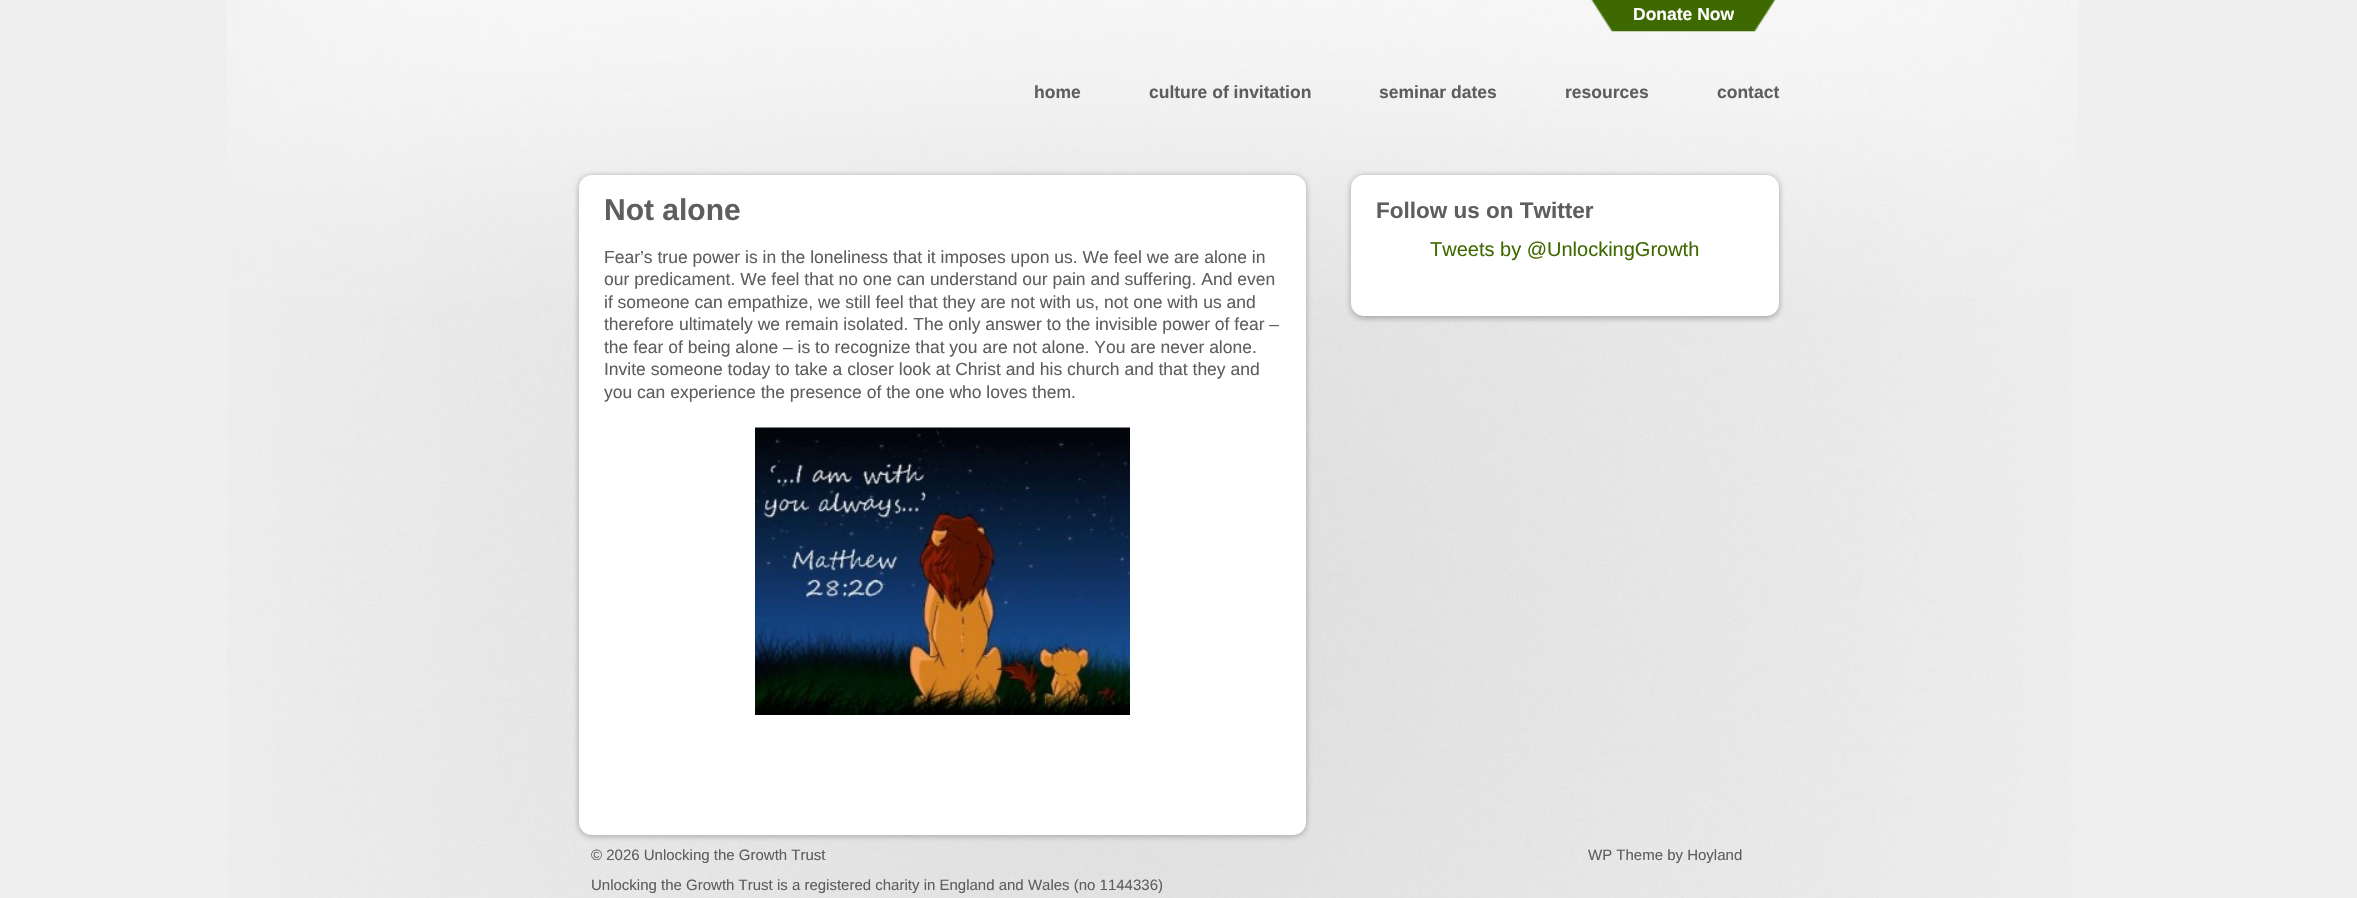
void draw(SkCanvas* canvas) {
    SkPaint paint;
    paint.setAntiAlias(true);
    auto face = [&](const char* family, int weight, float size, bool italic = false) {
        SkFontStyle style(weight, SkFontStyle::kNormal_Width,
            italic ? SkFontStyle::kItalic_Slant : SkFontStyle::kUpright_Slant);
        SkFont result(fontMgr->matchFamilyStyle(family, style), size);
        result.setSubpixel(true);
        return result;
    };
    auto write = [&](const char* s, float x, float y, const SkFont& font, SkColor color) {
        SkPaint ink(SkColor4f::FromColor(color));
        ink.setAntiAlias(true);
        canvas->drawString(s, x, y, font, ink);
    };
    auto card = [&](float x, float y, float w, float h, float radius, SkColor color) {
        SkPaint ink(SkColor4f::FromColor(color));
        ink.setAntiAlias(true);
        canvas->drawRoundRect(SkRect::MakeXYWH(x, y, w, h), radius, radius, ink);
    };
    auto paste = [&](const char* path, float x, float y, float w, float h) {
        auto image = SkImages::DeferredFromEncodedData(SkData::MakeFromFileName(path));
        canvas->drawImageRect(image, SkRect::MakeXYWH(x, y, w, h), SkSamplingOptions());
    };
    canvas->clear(SkColorSetRGB(239, 239, 239));
    paste("pic1.png", 227, 0, 1851, 898);
    paste("pic2.png", 1591, 0, 185, 32);
    auto kFont1 = face("Liberation Sans", 700, 17.5f);
    write("Donate Now", 1633, 20, kFont1, SK_ColorWHITE);
    write("home", 1034, 98, kFont1, SkColorSetRGB(94, 94, 94));
    write("culture of invitation", 1149, 98, kFont1, SkColorSetRGB(94, 94, 94));
    write("seminar dates", 1379, 98, kFont1, SkColorSetRGB(94, 94, 94));
    write("resources", 1565, 98, kFont1, SkColorSetRGB(94, 94, 94));
    write("contact", 1717, 98, kFont1, SkColorSetRGB(94, 94, 94));
    paint.setColor(SkColorSetARGB(191, 138, 138, 138));
    paint.setMaskFilter(SkMaskFilter::MakeBlur(kNormal_SkBlurStyle, 3));
    canvas->drawRoundRect(SkRect::MakeXYWH(579, 176, 727, 660), 13, 13, paint);
    paint.setMaskFilter(nullptr);
    card(579, 175, 727, 660, 13, SK_ColorWHITE);
    auto kFont2 = face("Liberation Sans", 700, 30);
    write("Not alone", 604, 220, kFont2, SkColorSetRGB(94, 94, 94));
    auto kFont3 = face("Liberation Sans", 400, 17.5f);
    write("Fear’s true power is in the loneliness that it imposes upon us. We feel we are alone in", 604, 263, kFont3, SkColorSetRGB(94, 94, 94));
    write("our predicament. We feel that no one can understand our pain and suffering. And even", 604, 285, kFont3, SkColorSetRGB(94, 94, 94));
    write("if someone can empathize, we still feel that they are not with us, not one with us and", 604, 308, kFont3, SkColorSetRGB(94, 94, 94));
    write("therefore ultimately we remain isolated. The only answer to the invisible power of fear –", 604, 330, kFont3, SkColorSetRGB(94, 94, 94));
    write("the fear of being alone – is to recognize that you are not alone. You are never alone.", 604, 353, kFont3, SkColorSetRGB(94, 94, 94));
    write("Invite someone today to take a closer look at Christ and his church and that they and", 604, 375, kFont3, SkColorSetRGB(94, 94, 94));
    write("you can experience the presence of the one who loves them.", 604, 398, kFont3, SkColorSetRGB(94, 94, 94));
    paste("pic3.png", 755, 427, 375, 288);
    paint.setMaskFilter(SkMaskFilter::MakeBlur(kNormal_SkBlurStyle, 3));
    canvas->drawRoundRect(SkRect::MakeXYWH(1351, 176, 428, 142), 13, 13, paint);
    paint.setMaskFilter(nullptr);
    card(1351, 175, 428, 141, 13, SK_ColorWHITE);
    auto kFont4 = face("Liberation Sans", 700, 22.5f);
    write("Follow us on Twitter", 1376, 218, kFont4, SkColorSetRGB(94, 94, 94));
    auto kFont5 = face("Liberation Sans", 400, 20);
    write("Tweets by @UnlockingGrowth", 1430, 256, kFont5, SkColorSetRGB(62, 105, 0));
    auto kFont6 = face("Liberation Sans", 400, 15);
    write("© 2026 Unlocking the Growth Trust", 591, 860, kFont6, SkColorSetRGB(94, 94, 94));
    write("Unlocking the Growth Trust is a registered charity in England and Wales (no 1144336)", 591, 890, kFont6, SkColorSetRGB(94, 94, 94));
    write("WP Theme by Hoyland", 1588, 860, kFont6, SkColorSetRGB(94, 94, 94));
}
